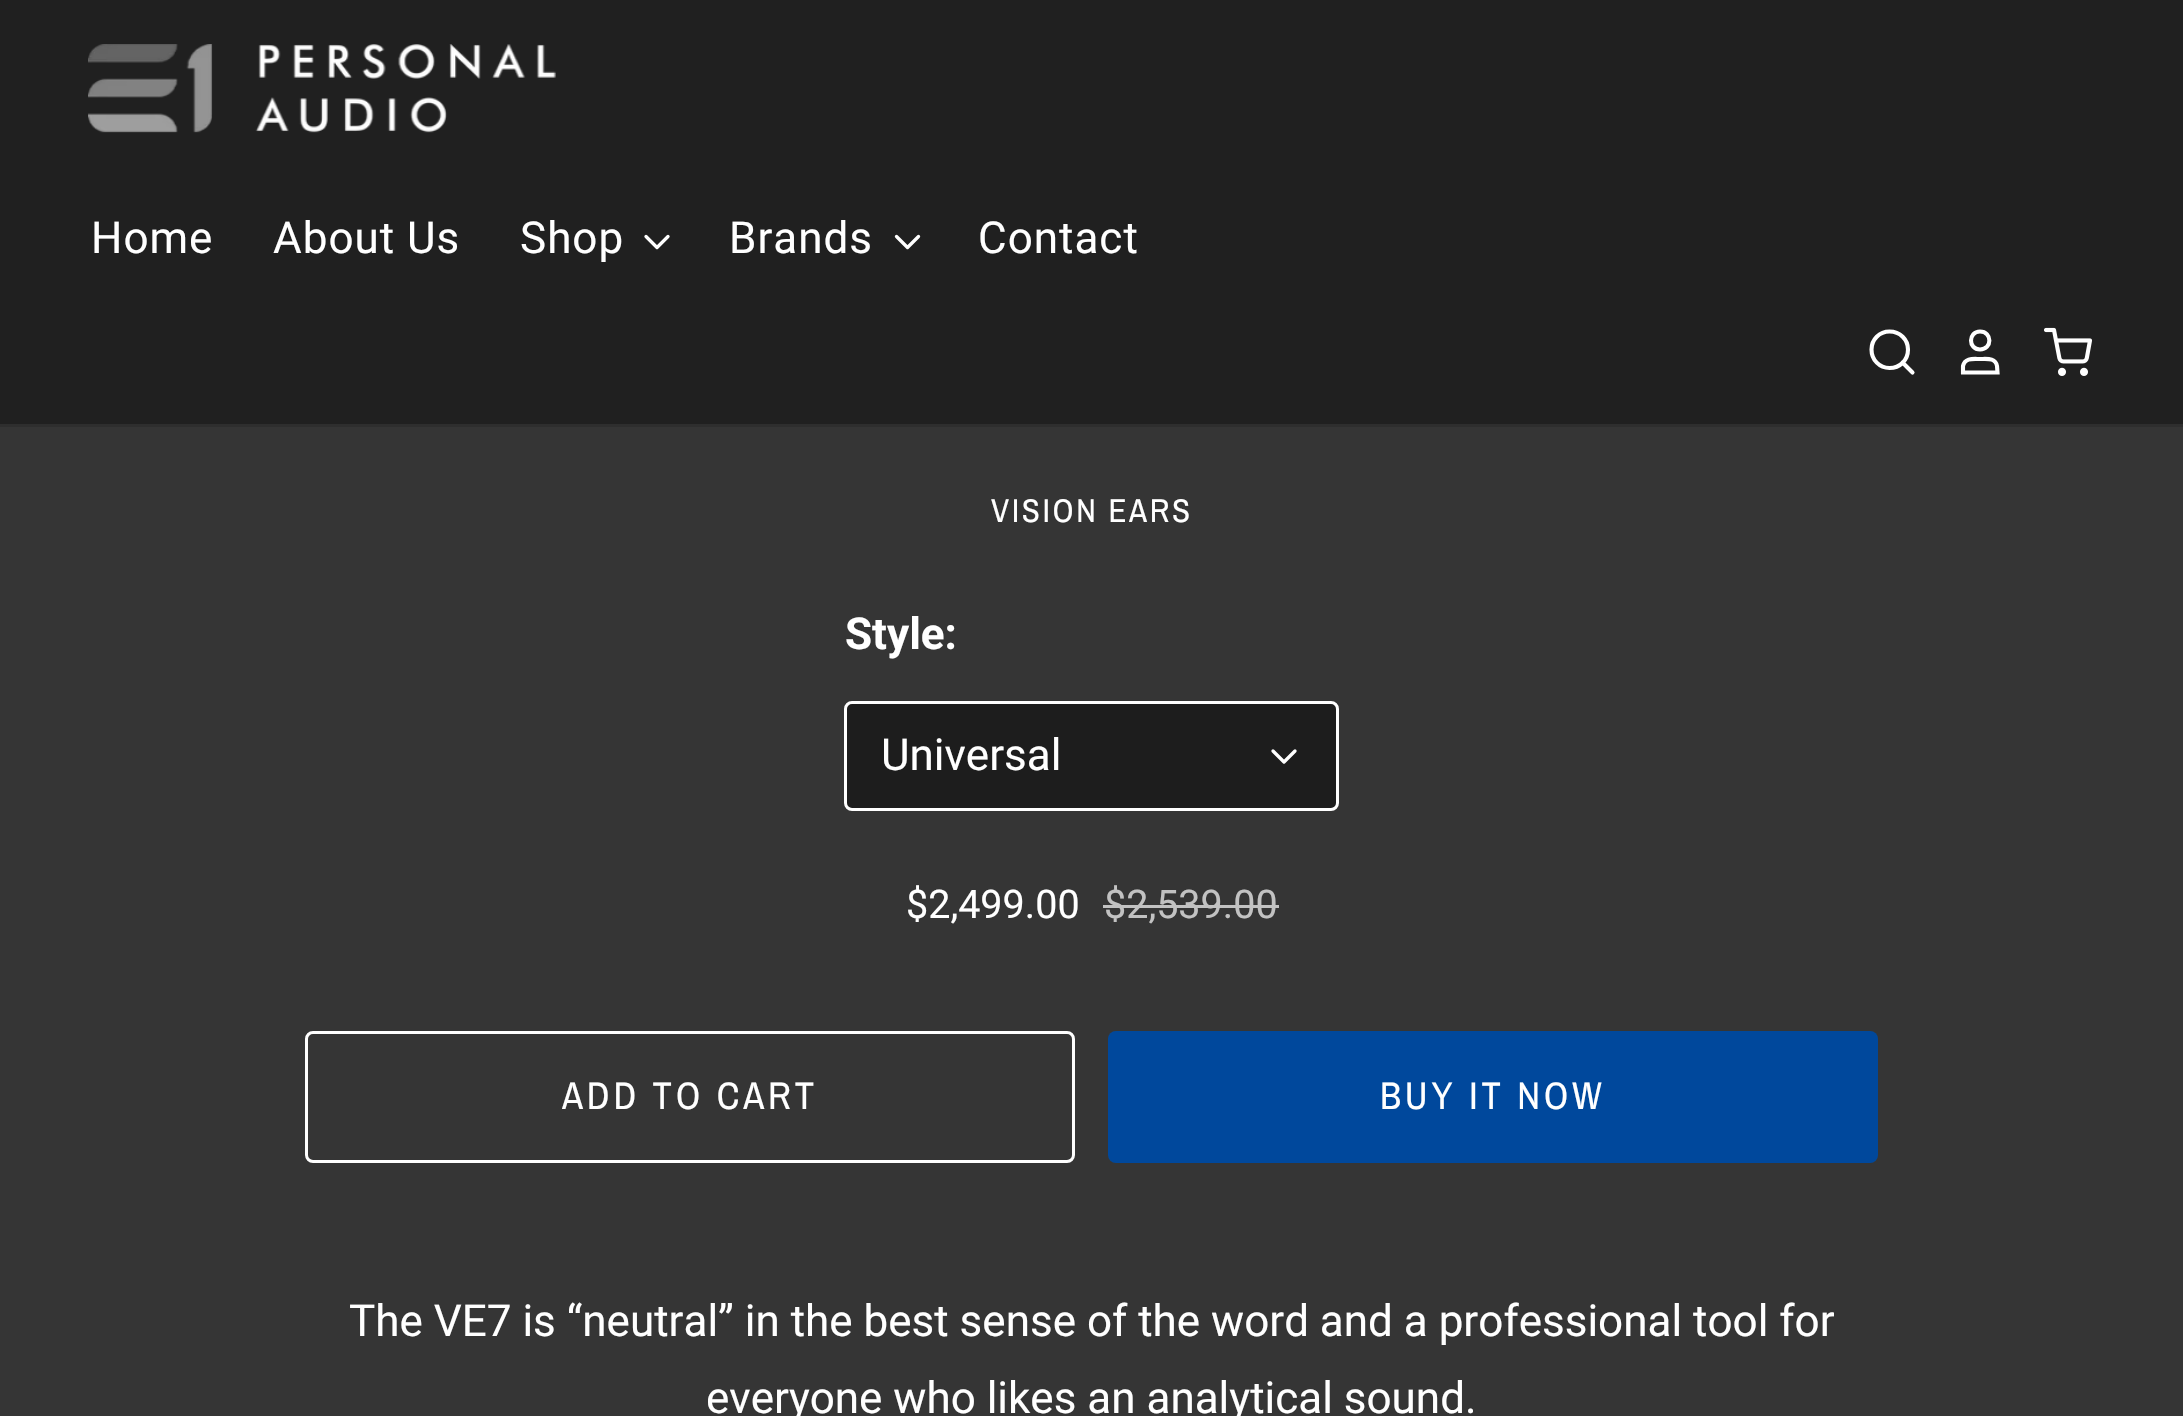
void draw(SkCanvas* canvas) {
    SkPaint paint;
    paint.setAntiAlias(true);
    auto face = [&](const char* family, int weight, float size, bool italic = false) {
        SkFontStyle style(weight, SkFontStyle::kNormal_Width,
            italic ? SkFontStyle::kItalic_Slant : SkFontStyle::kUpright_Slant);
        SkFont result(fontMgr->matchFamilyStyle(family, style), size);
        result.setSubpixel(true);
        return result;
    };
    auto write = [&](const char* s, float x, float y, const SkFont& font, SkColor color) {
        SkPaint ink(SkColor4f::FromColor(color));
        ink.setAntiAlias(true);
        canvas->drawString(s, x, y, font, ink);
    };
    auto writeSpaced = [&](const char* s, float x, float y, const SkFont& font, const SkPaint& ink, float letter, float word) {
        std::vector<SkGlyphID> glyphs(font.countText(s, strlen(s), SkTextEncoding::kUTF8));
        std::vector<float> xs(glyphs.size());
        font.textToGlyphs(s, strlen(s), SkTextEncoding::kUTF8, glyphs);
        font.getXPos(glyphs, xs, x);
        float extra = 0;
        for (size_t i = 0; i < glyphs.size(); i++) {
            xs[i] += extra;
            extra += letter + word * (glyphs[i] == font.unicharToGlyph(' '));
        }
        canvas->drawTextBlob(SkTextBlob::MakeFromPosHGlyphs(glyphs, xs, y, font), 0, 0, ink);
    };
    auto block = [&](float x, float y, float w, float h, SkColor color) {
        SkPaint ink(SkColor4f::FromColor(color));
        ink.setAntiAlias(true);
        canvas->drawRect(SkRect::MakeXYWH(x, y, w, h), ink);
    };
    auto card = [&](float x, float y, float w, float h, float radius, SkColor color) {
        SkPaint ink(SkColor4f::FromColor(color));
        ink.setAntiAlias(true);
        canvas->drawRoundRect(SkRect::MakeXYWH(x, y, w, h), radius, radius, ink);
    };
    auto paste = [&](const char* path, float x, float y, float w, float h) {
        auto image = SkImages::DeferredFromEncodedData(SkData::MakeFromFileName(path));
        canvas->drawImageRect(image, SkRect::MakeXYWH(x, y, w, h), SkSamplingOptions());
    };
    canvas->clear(SkColorSetRGB(53, 53, 53));
    block(0, 0, 2183, 424, SkColorSetRGB(32, 32, 32));
    block(0, 424, 2183, 3, SkColorSetRGB(46, 46, 46));
    paste("pic1.png", 88, 44, 468, 89);
    auto kFont1 = face("Roboto", 400, 44);
    paint.setColor(SK_ColorWHITE);
    writeSpaced("Home", 91, 253, kFont1, paint, 1, 0);
    writeSpaced("About Us", 273, 253, kFont1, paint, 1, 0);
    writeSpaced("Shop", 520, 253, kFont1, paint, 1, 0);
    paint.setStyle(SkPaint::kStroke_Style);
    paint.setStrokeWidth(3.3f);
    paint.setStrokeCap(SkPaint::kRound_Cap);
    paint.setStrokeJoin(SkPaint::kRound_Join);
    canvas->drawPath(SkPathBuilder().moveTo(646, 236.5f).lineTo(657, 247.5f).lineTo(668, 236.5f).detach(), paint);
    paint.setStyle(SkPaint::kFill_Style);
    writeSpaced("Brands", 729, 253, kFont1, paint, 1, 0);
    paint.setStyle(SkPaint::kStroke_Style);
    canvas->drawPath(SkPathBuilder().moveTo(896.5f, 236.5f).lineTo(907.5f, 247.5f).lineTo(918.5f, 236.5f).detach(), paint);
    paint.setStyle(SkPaint::kFill_Style);
    writeSpaced("Contact", 978, 253, kFont1, paint, 1, 0);
    paint.setStyle(SkPaint::kStroke_Style);
    paint.setStrokeWidth(4.1f);
    canvas->drawPath(SkPathBuilder().moveTo(1889.5f, 331.5f).cubicTo(1879.5f, 331.5f, 1871.5f, 339.5f, 1871.5f, 349.5f).cubicTo(1871.5f, 360, 1879.5f, 368, 1889.5f, 368).cubicTo(1900, 368, 1908, 360, 1908, 349.5f).cubicTo(1908, 339.5f, 1900, 331.5f, 1889.5f, 331.5f).close().moveTo(1912.5f, 372.5f).lineTo(1902.5f, 362.5f).close().detach(), paint);
    paint.setStrokeCap(SkPaint::kButt_Cap);
    paint.setStrokeJoin(SkPaint::kMiter_Join);
    canvas->drawPath(SkPathBuilder().moveTo(1997.5f, 372.5f).lineTo(1997, 366).cubicTo(1995.5f, 357.5f, 1987, 359, 1980, 359).cubicTo(1973.5f, 359, 1965, 357.5f, 1963, 366).lineTo(1963, 372.5f).close().moveTo(1980, 331.5f).cubicTo(1968, 331.5f, 1968, 349.5f, 1980, 349.5f).cubicTo(1992.5f, 349.5f, 1992.5f, 331.5f, 1980, 331.5f).close().detach(), paint);
    paste("pic2.png", 2044, 327, 48, 49);
    auto kFont2 = face("Archivo Narrow", 400, 33);
    paint.setStyle(SkPaint::kFill_Style);
    writeSpaced("VISION EARS", 991, 522, kFont2, paint, 2.6f, 0);
    auto kFont3 = face("Roboto", 700, 44);
    write("Style:", 845, 649, kFont3, SK_ColorWHITE);
    paint.setColor(SkColorSetRGB(29, 29, 29));
    canvas->drawRoundRect(SkRect::MakeXYWH(845.5f, 702.5f, 492, 107), 6.5f, 6.5f, paint);
    paint.setStyle(SkPaint::kStroke_Style);
    paint.setStrokeWidth(3);
    paint.setColor(SK_ColorWHITE);
    canvas->drawRoundRect(SkRect::MakeXYWH(845.5f, 702.5f, 492, 107), 6.5f, 6.5f, paint);
    write("Universal", 881, 770, kFont1, SK_ColorWHITE);
    paint.setStrokeWidth(3.3f);
    paint.setStrokeCap(SkPaint::kRound_Cap);
    paint.setStrokeJoin(SkPaint::kRound_Join);
    canvas->drawPath(SkPathBuilder().moveTo(1273, 751).lineTo(1284, 762).lineTo(1295, 751).detach(), paint);
    auto kFont4 = face("Roboto", 400, 39.5f);
    write("$2,499.00", 906, 918, kFont4, SK_ColorWHITE);
    write("$2,539.00", 1104, 918, kFont4, SkColorSetRGB(194, 194, 194));
    block(1103, 905, 176, 3, SkColorSetRGB(194, 194, 194));
    paint.setStrokeWidth(3);
    paint.setStrokeCap(SkPaint::kButt_Cap);
    paint.setStrokeJoin(SkPaint::kMiter_Join);
    canvas->drawRoundRect(SkRect::MakeXYWH(306.5f, 1032.5f, 767, 129), 6.5f, 6.5f, paint);
    auto kFont5 = face("Archivo Narrow", 400, 38.5f);
    paint.setStyle(SkPaint::kFill_Style);
    writeSpaced("ADD TO CART", 562, 1109, kFont5, paint, 3.8f, 0);
    card(1108, 1031, 770, 132, 8, SkColorSetRGB(0, 72, 156));
    writeSpaced("BUY IT NOW", 1380, 1109, kFont5, paint, 3.8f, 0);
    write("The VE7 is “neutral” in the best sense of the word and a professional tool for", 349, 1336, kFont1, SK_ColorWHITE);
    write("everyone who likes an analytical sound.", 706, 1413, kFont1, SK_ColorWHITE);
}
